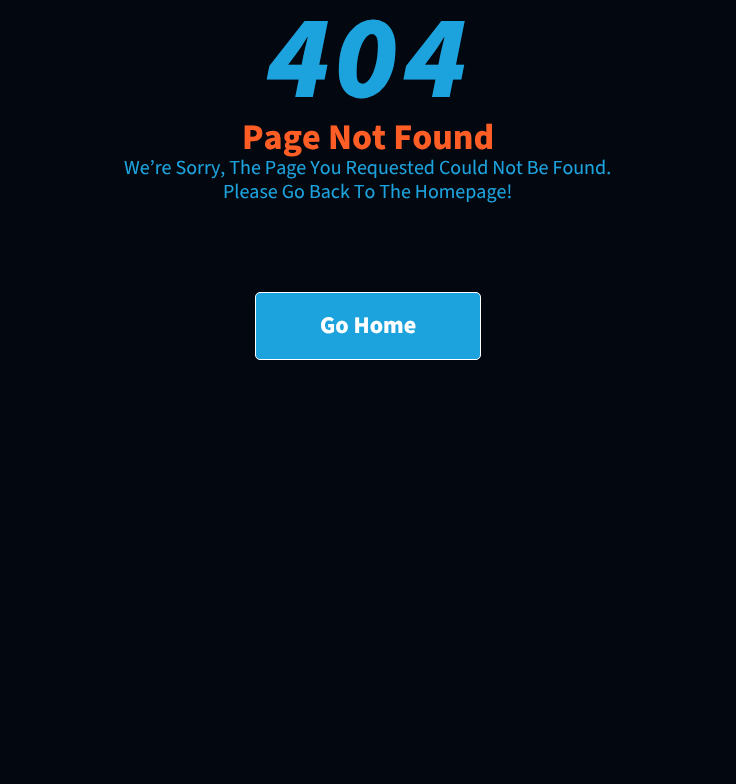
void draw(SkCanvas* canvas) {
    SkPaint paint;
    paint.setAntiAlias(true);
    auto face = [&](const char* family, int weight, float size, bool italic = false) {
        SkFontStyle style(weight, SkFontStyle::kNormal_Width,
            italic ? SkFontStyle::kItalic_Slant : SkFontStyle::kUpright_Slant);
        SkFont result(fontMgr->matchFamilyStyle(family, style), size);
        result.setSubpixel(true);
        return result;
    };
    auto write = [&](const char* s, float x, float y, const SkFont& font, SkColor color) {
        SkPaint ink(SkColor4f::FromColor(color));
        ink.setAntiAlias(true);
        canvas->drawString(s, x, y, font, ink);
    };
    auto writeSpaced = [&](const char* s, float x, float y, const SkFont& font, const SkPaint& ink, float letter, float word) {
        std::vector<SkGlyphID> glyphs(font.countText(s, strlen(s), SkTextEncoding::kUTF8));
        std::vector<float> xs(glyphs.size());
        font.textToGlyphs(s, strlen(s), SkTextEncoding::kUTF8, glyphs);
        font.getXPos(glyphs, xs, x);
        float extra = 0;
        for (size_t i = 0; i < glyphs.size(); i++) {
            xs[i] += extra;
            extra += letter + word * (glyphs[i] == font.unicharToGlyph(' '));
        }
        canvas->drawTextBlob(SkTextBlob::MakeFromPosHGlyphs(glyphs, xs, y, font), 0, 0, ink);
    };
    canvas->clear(SkColorSetRGB(3, 7, 15));
    auto kFont1 = face("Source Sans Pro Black", 900, 120, true);
    paint.setColor(SkColorSetRGB(28, 162, 220));
    writeSpaced("404", 266, 97, kFont1, paint, 6, 0);
    auto kFont2 = face("Source Sans Pro", 700, 36);
    write("Page Not Found", 242, 149, kFont2, SkColorSetRGB(254, 94, 38));
    auto kFont3 = face("Source Sans Pro", 400, 20);
    write("We’re Sorry, The Page You Requested Could Not Be Found.", 124, 174, kFont3, SkColorSetRGB(28, 162, 220));
    write("Please Go Back To The Homepage!", 223, 198, kFont3, SkColorSetRGB(28, 162, 220));
    canvas->drawRoundRect(SkRect::MakeXYWH(255.5f, 292.5f, 225, 67), 4.5f, 4.5f, paint);
    paint.setStyle(SkPaint::kStroke_Style);
    paint.setStrokeWidth(1);
    paint.setColor(SK_ColorWHITE);
    canvas->drawRoundRect(SkRect::MakeXYWH(255.5f, 292.5f, 225, 67), 4.5f, 4.5f, paint);
    auto kFont4 = face("Source Sans Pro", 700, 24);
    write("Go Home", 320, 333, kFont4, SK_ColorWHITE);
}
